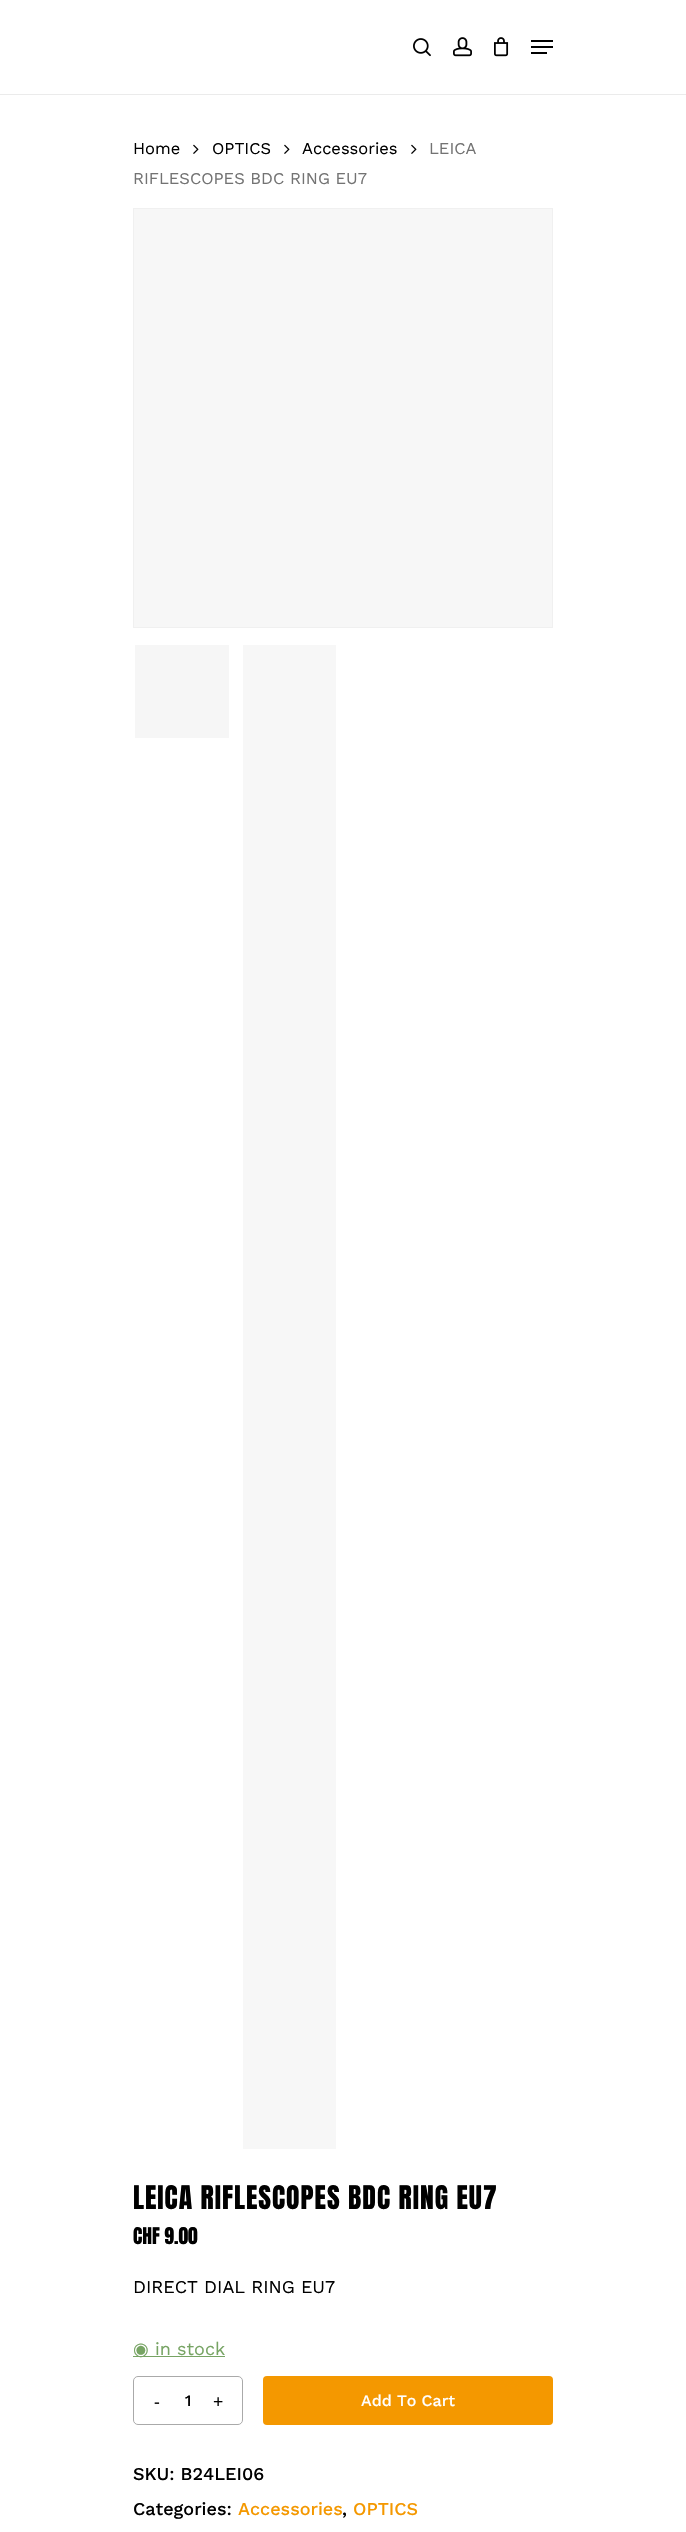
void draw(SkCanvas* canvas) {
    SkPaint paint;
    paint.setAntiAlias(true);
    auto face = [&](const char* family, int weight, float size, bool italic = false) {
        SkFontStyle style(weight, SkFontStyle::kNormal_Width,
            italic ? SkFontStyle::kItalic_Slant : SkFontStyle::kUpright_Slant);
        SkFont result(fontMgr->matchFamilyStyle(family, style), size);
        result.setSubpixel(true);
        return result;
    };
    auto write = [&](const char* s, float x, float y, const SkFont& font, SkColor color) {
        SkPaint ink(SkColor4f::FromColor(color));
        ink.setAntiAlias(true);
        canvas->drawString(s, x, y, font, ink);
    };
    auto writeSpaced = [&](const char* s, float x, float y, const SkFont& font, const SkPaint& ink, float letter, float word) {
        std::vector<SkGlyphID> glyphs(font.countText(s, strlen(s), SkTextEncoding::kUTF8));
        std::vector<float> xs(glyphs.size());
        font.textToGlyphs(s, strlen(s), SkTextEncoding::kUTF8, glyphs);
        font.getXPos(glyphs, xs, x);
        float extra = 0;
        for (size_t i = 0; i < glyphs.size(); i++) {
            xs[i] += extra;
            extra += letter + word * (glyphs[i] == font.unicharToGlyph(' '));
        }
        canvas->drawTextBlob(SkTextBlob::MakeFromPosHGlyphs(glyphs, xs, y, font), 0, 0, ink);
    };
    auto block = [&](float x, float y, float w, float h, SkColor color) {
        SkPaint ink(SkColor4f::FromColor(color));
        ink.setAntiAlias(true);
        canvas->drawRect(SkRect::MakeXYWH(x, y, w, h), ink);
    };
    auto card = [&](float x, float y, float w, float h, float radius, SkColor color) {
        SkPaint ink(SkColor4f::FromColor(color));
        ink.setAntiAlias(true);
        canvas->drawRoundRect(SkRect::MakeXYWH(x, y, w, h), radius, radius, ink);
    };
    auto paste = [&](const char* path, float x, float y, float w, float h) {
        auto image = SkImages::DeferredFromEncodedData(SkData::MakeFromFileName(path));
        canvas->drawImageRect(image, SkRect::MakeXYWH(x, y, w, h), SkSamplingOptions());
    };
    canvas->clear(SK_ColorWHITE);
    block(0, 94, 686, 1, SkColorSetRGB(235, 235, 235));
    paste("pic1.png", 413, 38, 18, 19);
    paste("pic2.png", 453, 37, 19, 20);
    paste("pic3.png", 494, 37, 15, 20);
    block(531, 40, 22, 2, SK_ColorBLACK);
    block(531, 52, 16, 2, SK_ColorBLACK);
    block(531, 46, 22, 2, SK_ColorBLACK);
    auto kFont1 = face("Work Sans", 400, 16.5f);
    write("Home", 133, 154, kFont1, SK_ColorBLACK);
    paste("pic4.png", 193, 144, 6, 10);
    write("OPTICS", 212, 154, kFont1, SK_ColorBLACK);
    paste("pic4.png", 284, 144, 6, 10);
    write("Accessories", 302, 154, kFont1, SK_ColorBLACK);
    paste("pic4.png", 411, 144, 6, 10);
    write("LEICA", 429, 154, kFont1, SkColorSetRGB(115, 115, 115));
    write("RIFLESCOPES BDC RING EU7", 133, 184, kFont1, SkColorSetRGB(115, 115, 115));
    paint.setColor(SkColorSetRGB(247, 247, 247));
    canvas->drawRect(SkRect::MakeXYWH(133.5f, 208.5f, 419, 419), paint);
    paint.setStyle(SkPaint::kStroke_Style);
    paint.setStrokeWidth(1);
    paint.setColor(SkColorSetRGB(240, 240, 240));
    canvas->drawRect(SkRect::MakeXYWH(133.5f, 208.5f, 419, 419), paint);
    block(135, 645, 94, 93, SkColorSetRGB(246, 246, 246));
    block(243, 645, 93, 1504, SkColorSetRGB(247, 247, 247));
    auto kFont2 = face("Anton", 400, 27.6f);
    paint.setStyle(SkPaint::kFill_Style);
    paint.setColor(SK_ColorBLACK);
    writeSpaced("LEICA RIFLESCOPES BDC RING EU7", 133, 2209, kFont2, paint, 1, 0);
    auto kFont3 = face("Anton", 400, 19.5f);
    write("CHF 9.00", 133, 2244, kFont3, SK_ColorBLACK);
    auto kFont4 = face("Work Sans", 400, 18);
    write("DIRECT DIAL RING EU7", 133, 2293, kFont4, SK_ColorBLACK);
    block(133, 2356, 92, 1, SkColorSetRGB(119, 164, 100));
    auto kFont5 = face("DejaVu Sans", 400, 18);
    write("◉", 133, 2355, kFont5, SkColorSetRGB(119, 164, 100));
    write("in stock", 155, 2355, kFont4, SkColorSetRGB(119, 164, 100));
    paint.setStyle(SkPaint::kStroke_Style);
    paint.setColor(SkColorSetRGB(170, 170, 170));
    canvas->drawRoundRect(SkRect::MakeXYWH(133.5f, 2376.5f, 109, 48), 4.5f, 4.5f, paint);
    auto kFont6 = face("Open Sans", 400, 18);
    write("-", 154, 2408, kFont6, SK_ColorBLACK);
    auto kFont7 = face("Work Sans", 500, 16);
    write("1", 185, 2406, kFont7, SK_ColorBLACK);
    write("+", 213, 2408, kFont6, SK_ColorBLACK);
    card(263, 2376, 290, 49, 4, SkColorSetRGB(244, 152, 0));
    write("Add To Cart", 361, 2406, kFont7, SK_ColorWHITE);
    auto kFont8 = face("Work Sans", 500, 18);
    write("SKU: B24LEI06", 133, 2480, kFont8, SK_ColorBLACK);
    write("Categories:", 133, 2515, kFont8, SK_ColorBLACK);
    write("Accessories", 238, 2515, kFont8, SkColorSetRGB(244, 152, 0));
    write(",", 342, 2515, kFont8, SK_ColorBLACK);
    write("OPTICS", 353, 2515, kFont8, SkColorSetRGB(244, 152, 0));
}
